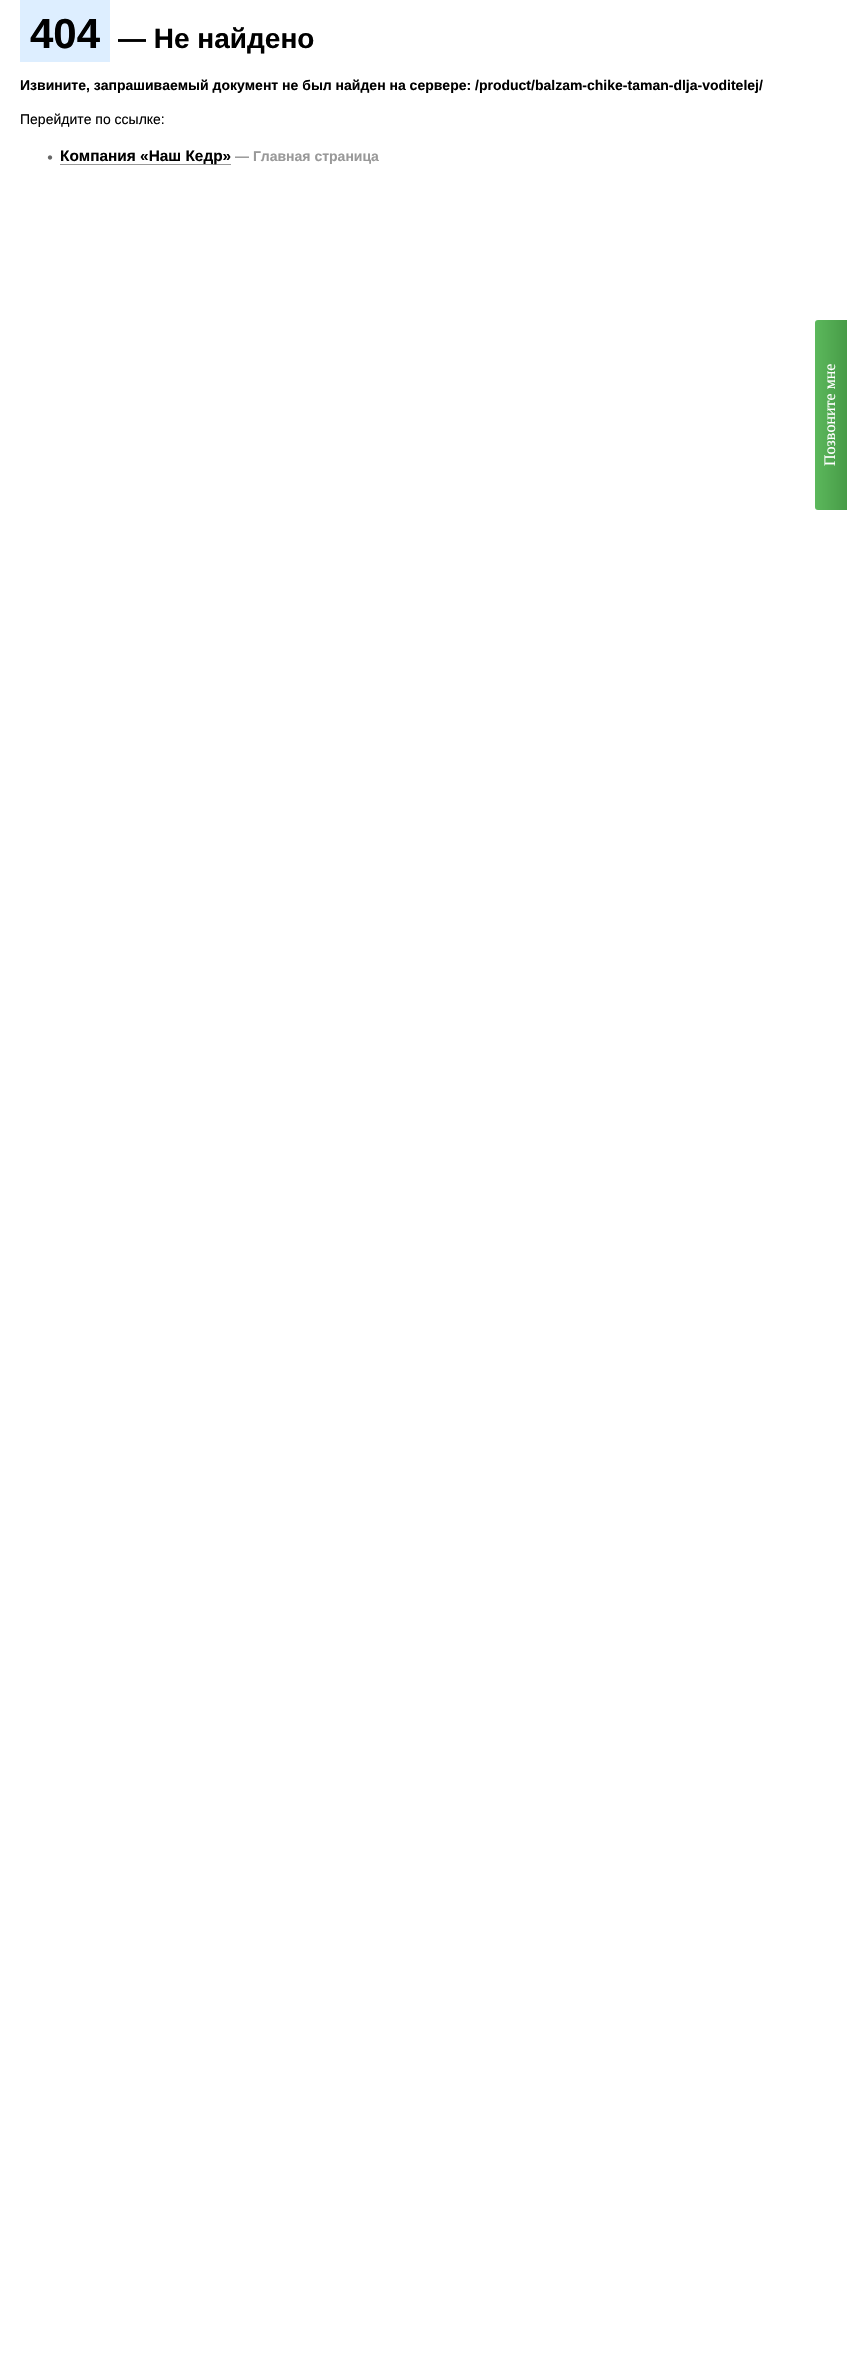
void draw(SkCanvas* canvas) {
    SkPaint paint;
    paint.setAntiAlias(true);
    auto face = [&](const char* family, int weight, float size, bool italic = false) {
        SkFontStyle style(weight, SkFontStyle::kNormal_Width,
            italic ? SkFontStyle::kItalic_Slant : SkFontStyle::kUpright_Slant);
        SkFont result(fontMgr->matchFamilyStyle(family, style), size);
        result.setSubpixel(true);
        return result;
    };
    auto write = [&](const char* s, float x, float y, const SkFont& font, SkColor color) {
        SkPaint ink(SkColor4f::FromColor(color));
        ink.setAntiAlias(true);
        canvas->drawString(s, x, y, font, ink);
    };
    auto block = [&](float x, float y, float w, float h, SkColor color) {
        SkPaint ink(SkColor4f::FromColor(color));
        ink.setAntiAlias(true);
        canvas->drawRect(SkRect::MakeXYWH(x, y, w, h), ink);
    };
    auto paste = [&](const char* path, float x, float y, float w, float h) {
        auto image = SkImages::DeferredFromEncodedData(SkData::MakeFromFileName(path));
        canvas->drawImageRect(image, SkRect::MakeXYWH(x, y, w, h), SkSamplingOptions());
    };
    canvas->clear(SK_ColorWHITE);
    block(20, 0, 90, 62, SkColorSetRGB(221, 238, 255));
    auto kFont1 = face("Liberation Sans", 700, 42);
    write("404", 30, 48, kFont1, SK_ColorBLACK);
    auto kFont2 = face("Liberation Sans", 700, 28);
    write("— Не найдено", 118, 48, kFont2, SK_ColorBLACK);
    auto kFont3 = face("Liberation Sans", 700, 14);
    write("Извините, запрашиваемый документ не был найден на сервере: /product/balzam-chike-taman-dlja-voditelej/", 20, 90, kFont3, SK_ColorBLACK);
    auto kFont4 = face("Liberation Sans", 400, 14);
    write("Перейдите по ссылке:", 20, 124, kFont4, SK_ColorBLACK);
    paste("pic1.png", 47, 155, 6, 5);
    block(60, 164, 171, 1, SkColorSetRGB(153, 153, 153));
    auto kFont5 = face("Liberation Sans", 700, 15.4f);
    write("Компания «Наш Кедр»", 60, 161, kFont5, SK_ColorBLACK);
    write("— Главная страница", 235, 161, kFont3, SkColorSetRGB(153, 153, 153));
    {
        const SkColor colors[] = {SkColorSetRGB(92, 184, 92), SkColorSetRGB(62, 143, 62)};
        const float stops[] = {0, 1};
        const SkPoint ends[] = {{815, 415}, {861, 415}};
        paint.setShader(SkGradientShader::MakeLinear(ends, colors, stops, 2, SkTileMode::kClamp));
        paint.setAlpha(255);
    }
    canvas->drawPath(SkPathBuilder().moveTo(815, 507).lineTo(815, 323).cubicTo(815, 321, 816, 320, 818, 320).lineTo(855, 320).lineTo(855, 510).lineTo(818, 510).cubicTo(816, 510, 815, 509, 815, 507).close().detach(), paint);
    auto kFont6 = face("Liberation Serif", 400, 16);
    canvas->save();
    canvas->rotate(-90, 835, 466);
    write("Позвоните мне", 835, 466, kFont6, SK_ColorWHITE);
    canvas->restore();
}
